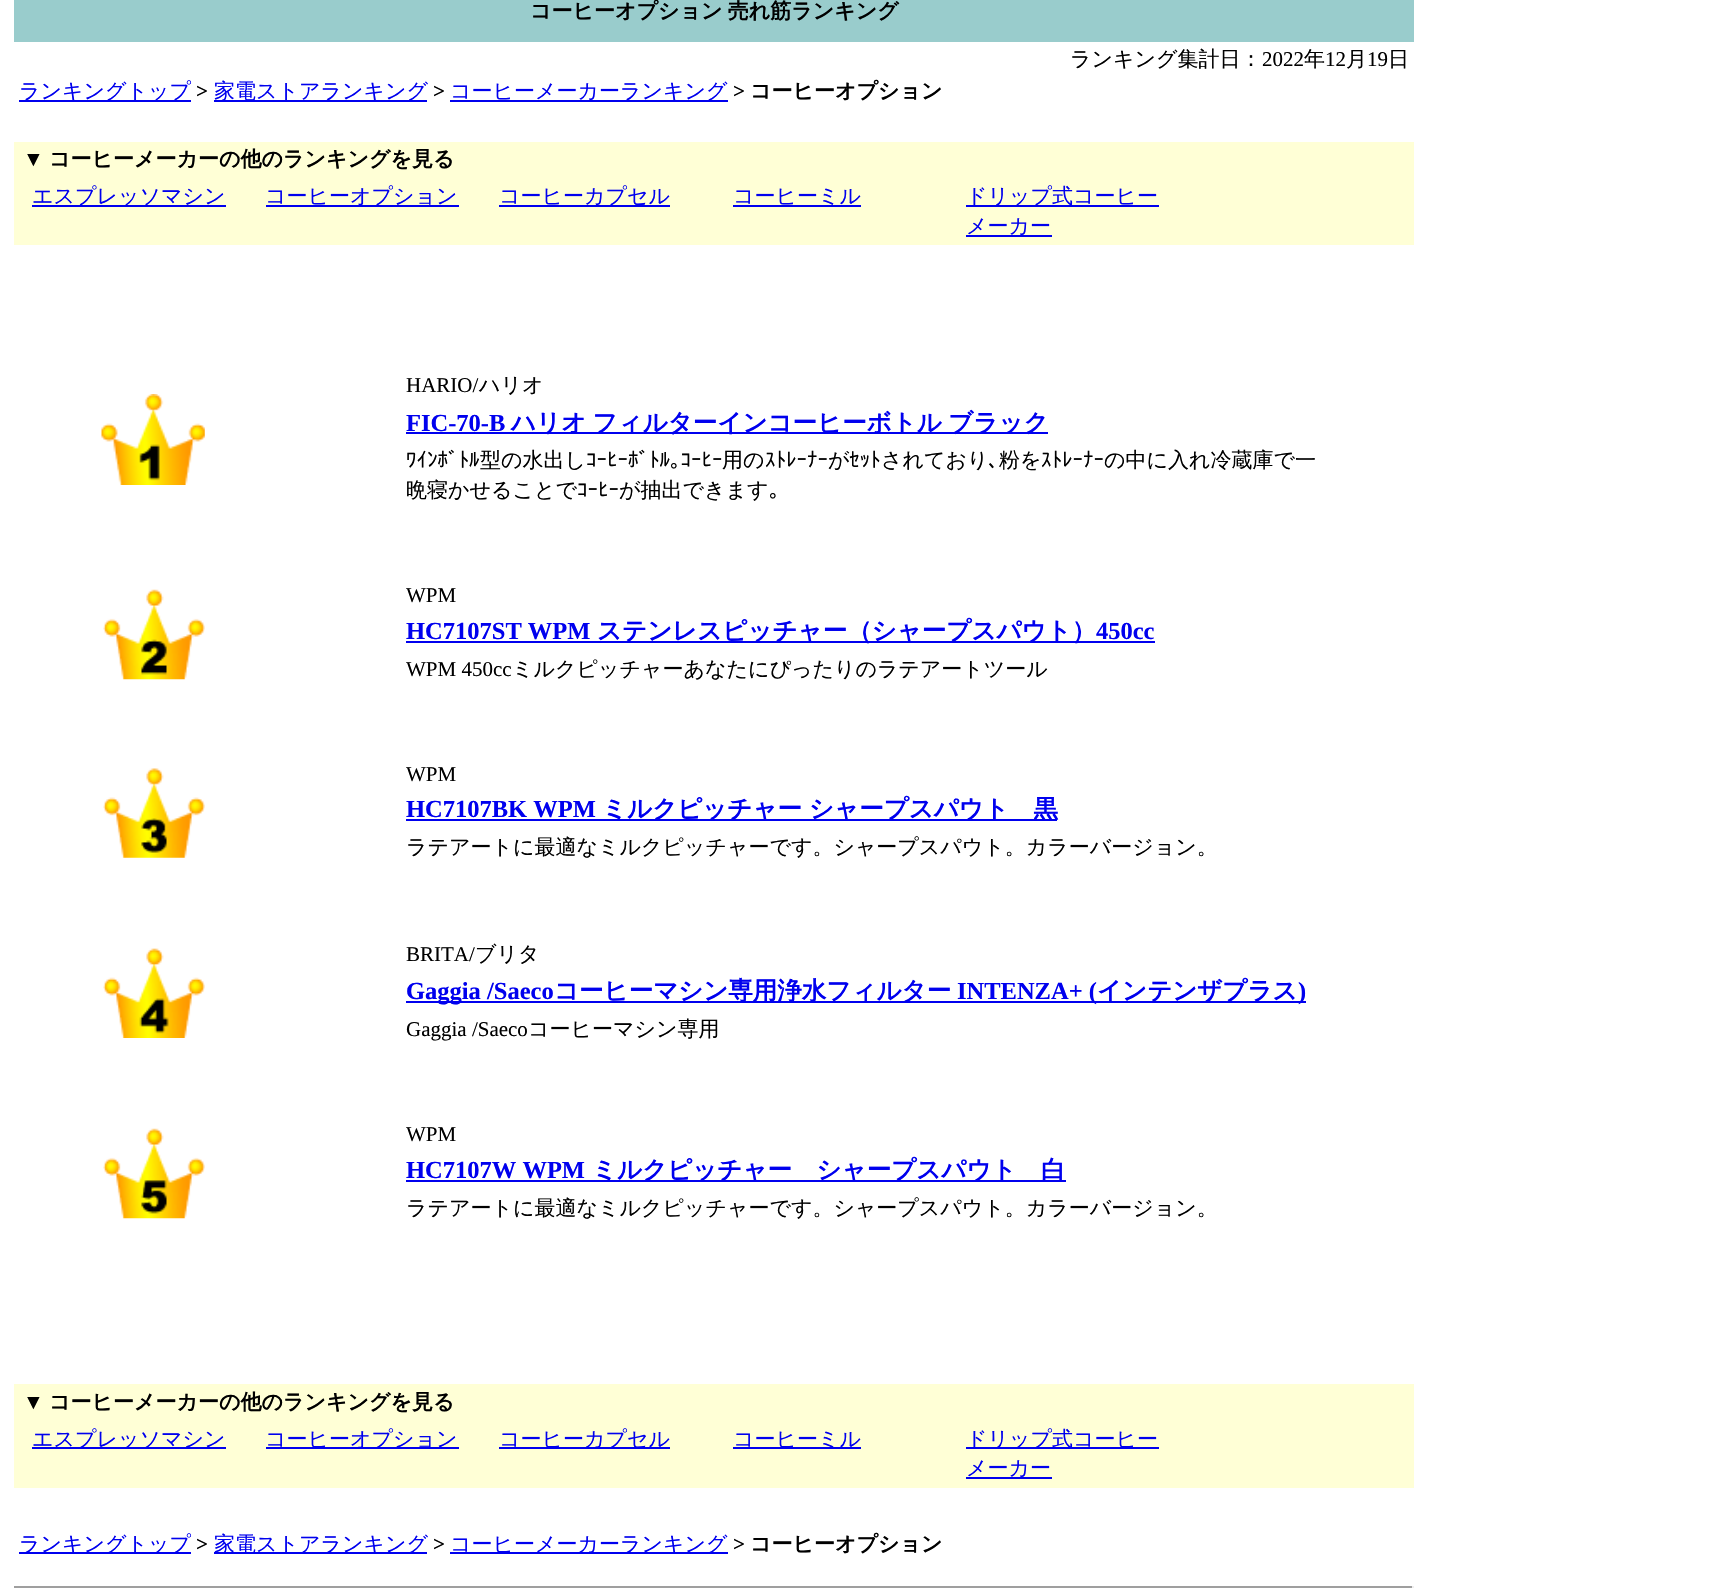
void draw(SkCanvas* canvas) {
    SkPaint paint;
    paint.setAntiAlias(true);
    auto face = [&](const char* family, int weight, float size, bool italic = false) {
        SkFontStyle style(weight, SkFontStyle::kNormal_Width,
            italic ? SkFontStyle::kItalic_Slant : SkFontStyle::kUpright_Slant);
        SkFont result(fontMgr->matchFamilyStyle(family, style), size);
        result.setSubpixel(true);
        return result;
    };
    auto write = [&](const char* s, float x, float y, const SkFont& font, SkColor color) {
        SkPaint ink(SkColor4f::FromColor(color));
        ink.setAntiAlias(true);
        canvas->drawString(s, x, y, font, ink);
    };
    auto writeSpaced = [&](const char* s, float x, float y, const SkFont& font, const SkPaint& ink, float letter, float word) {
        std::vector<SkGlyphID> glyphs(font.countText(s, strlen(s), SkTextEncoding::kUTF8));
        std::vector<float> xs(glyphs.size());
        font.textToGlyphs(s, strlen(s), SkTextEncoding::kUTF8, glyphs);
        font.getXPos(glyphs, xs, x);
        float extra = 0;
        for (size_t i = 0; i < glyphs.size(); i++) {
            xs[i] += extra;
            extra += letter + word * (glyphs[i] == font.unicharToGlyph(' '));
        }
        canvas->drawTextBlob(SkTextBlob::MakeFromPosHGlyphs(glyphs, xs, y, font), 0, 0, ink);
    };
    auto block = [&](float x, float y, float w, float h, SkColor color) {
        SkPaint ink(SkColor4f::FromColor(color));
        ink.setAntiAlias(true);
        canvas->drawRect(SkRect::MakeXYWH(x, y, w, h), ink);
    };
    auto paste = [&](const char* path, float x, float y, float w, float h) {
        auto image = SkImages::DeferredFromEncodedData(SkData::MakeFromFileName(path));
        canvas->drawImageRect(image, SkRect::MakeXYWH(x, y, w, h), SkSamplingOptions());
    };
    canvas->clear(SK_ColorWHITE);
    block(14, 0, 1400, 42, SkColorSetRGB(153, 204, 204));
    auto kFont1 = face("WenQuanYi Zen Hei", 700, 21);
    paint.setColor(SK_ColorBLACK);
    writeSpaced("コーヒーオプション 売れ筋ランキング", 530, 18, kFont1, paint, 0, -1);
    auto kFont2 = face("WenQuanYi Zen Hei", 500, 21);
    write("ランキング集計日：", 1070, 66, kFont2, SK_ColorBLACK);
    auto kFont3 = face("Liberation Serif", 400, 21);
    write("2022", 1262, 66, kFont3, SK_ColorBLACK);
    write("年", 1304, 66, kFont2, SK_ColorBLACK);
    write("12", 1325, 66, kFont3, SK_ColorBLACK);
    write("月", 1346, 66, kFont2, SK_ColorBLACK);
    write("19", 1367, 66, kFont3, SK_ColorBLACK);
    write("日", 1388, 66, kFont2, SK_ColorBLACK);
    block(19, 100, 172, 2, SkColorSetRGB(0, 0, 238));
    write("ランキングトップ", 19, 98, kFont2, SkColorSetRGB(0, 0, 238));
    auto kFont4 = face("Liberation Serif", 700, 21);
    write(">", 196, 98, kFont4, SK_ColorBLACK);
    block(214, 100, 213, 2, SkColorSetRGB(0, 0, 238));
    write("家電ストアランキング", 214, 98, kFont2, SkColorSetRGB(0, 0, 238));
    write(">", 433, 98, kFont4, SK_ColorBLACK);
    block(450, 100, 278, 2, SkColorSetRGB(0, 0, 238));
    write("コーヒーメーカーランキング", 450, 98, kFont2, SkColorSetRGB(0, 0, 238));
    write(">", 733, 98, kFont4, SK_ColorBLACK);
    write("コーヒーオプション", 750, 98, kFont1, SK_ColorBLACK);
    block(14, 142, 1400, 103, SkColorSetRGB(255, 255, 214));
    write("▼", 23, 166, kFont4, SK_ColorBLACK);
    write("コーヒーメーカーの他のランキングを見る", 49, 166, kFont1, SK_ColorBLACK);
    block(32, 205, 194, 2, SkColorSetRGB(0, 0, 238));
    write("エスプレッソマシン", 32, 203, kFont2, SkColorSetRGB(0, 0, 238));
    block(266, 205, 193, 2, SkColorSetRGB(0, 0, 238));
    write("コーヒーオプション", 265, 203, kFont2, SkColorSetRGB(0, 0, 238));
    block(499, 205, 171, 2, SkColorSetRGB(0, 0, 238));
    write("コーヒーカプセル", 499, 203, kFont2, SkColorSetRGB(0, 0, 238));
    write("コーヒーミル", 733, 203, kFont2, SkColorSetRGB(0, 0, 238));
    block(733, 205, 128, 2, SkColorSetRGB(0, 0, 238));
    block(966, 205, 193, 2, SkColorSetRGB(0, 0, 238));
    write("ドリップ式コーヒー", 966, 203, kFont2, SkColorSetRGB(0, 0, 238));
    write("メーカー", 966, 233, kFont2, SkColorSetRGB(0, 0, 238));
    block(966, 235, 86, 2, SkColorSetRGB(0, 0, 238));
    paste("pic1.png", 101, 394, 104, 91);
    write("HARIO/", 406, 392, kFont3, SK_ColorBLACK);
    write("ハリオ", 479, 392, kFont2, SK_ColorBLACK);
    auto kFont5 = face("Liberation Serif", 700, 24.5f);
    write("FIC-70-B", 406, 431, kFont5, SkColorSetRGB(0, 0, 238));
    block(406, 432, 642, 2, SkColorSetRGB(0, 0, 238));
    auto kFont6 = face("WenQuanYi Zen Hei", 700, 24.5f);
    paint.setColor(SkColorSetRGB(0, 0, 238));
    writeSpaced("ハリオ フィルターインコーヒーボトル ブラック", 511, 431, kFont6, paint, 0, -1);
    auto kFont7 = face("IPAPGothic", 400, 21);
    write("ﾜｲﾝﾎﾞﾄﾙ", 406, 467, kFont7, SK_ColorBLACK);
    write("型の水出し", 480, 467, kFont2, SK_ColorBLACK);
    write("ｺｰﾋｰﾎﾞﾄﾙ｡ｺｰﾋｰ", 586, 467, kFont7, SK_ColorBLACK);
    write("用の", 722, 467, kFont2, SK_ColorBLACK);
    write("ｽﾄﾚｰﾅｰ", 765, 467, kFont7, SK_ColorBLACK);
    write("が", 828, 467, kFont2, SK_ColorBLACK);
    write("ｾｯﾄ", 849, 467, kFont7, SK_ColorBLACK);
    write("されており", 881, 467, kFont2, SK_ColorBLACK);
    write("､", 988, 467, kFont7, SK_ColorBLACK);
    write("粉を", 999, 467, kFont2, SK_ColorBLACK);
    write("ｽﾄﾚｰﾅｰ", 1041, 467, kFont7, SK_ColorBLACK);
    write("の中に入れ冷蔵庫で一", 1104, 467, kFont2, SK_ColorBLACK);
    write("晩寝かせることで", 406, 497, kFont2, SK_ColorBLACK);
    write("ｺｰﾋｰ", 577, 497, kFont7, SK_ColorBLACK);
    write("が抽出できます", 619, 497, kFont2, SK_ColorBLACK);
    write("｡", 769, 497, kFont7, SK_ColorBLACK);
    paste("pic2.png", 103, 589, 102, 91);
    write("WPM", 406, 602, kFont3, SK_ColorBLACK);
    write("HC7107ST WPM", 406, 639, kFont5, SkColorSetRGB(0, 0, 238));
    block(406, 641, 749, 2, SkColorSetRGB(0, 0, 238));
    write("ステンレスピッチャー（シャープスパウト）", 597, 639, kFont6, SkColorSetRGB(0, 0, 238));
    write("450cc", 1096, 639, kFont5, SkColorSetRGB(0, 0, 238));
    write("WPM 450cc", 406, 676, kFont3, SK_ColorBLACK);
    write("ミルクピッチャーあなたにぴったりのラテアートツール", 512, 676, kFont2, SK_ColorBLACK);
    paste("pic3.png", 103, 768, 102, 90);
    write("WPM", 406, 781, kFont3, SK_ColorBLACK);
    write("HC7107BK WPM", 406, 817, kFont5, SkColorSetRGB(0, 0, 238));
    block(406, 819, 651, 2, SkColorSetRGB(0, 0, 238));
    write("ミルクピッチャー", 602, 817, kFont6, SkColorSetRGB(0, 0, 238));
    write("シャープスパウト　黒", 809, 817, kFont6, SkColorSetRGB(0, 0, 238));
    write("ラテアートに最適なミルクピッチャーです。シャープスパウト。カラーバージョン。", 406, 854, kFont2, SK_ColorBLACK);
    paste("pic4.png", 103, 948, 102, 90);
    write("BRITA/", 406, 961, kFont3, SK_ColorBLACK);
    write("ブリタ", 475, 961, kFont2, SK_ColorBLACK);
    block(406, 1001, 900, 2, SkColorSetRGB(0, 0, 238));
    write("Gaggia /Saeco", 406, 999, kFont5, SkColorSetRGB(0, 0, 238));
    write("コーヒーマシン専用浄水フィルター", 554, 999, kFont6, SkColorSetRGB(0, 0, 238));
    write("INTENZA+ (", 957, 999, kFont5, SkColorSetRGB(0, 0, 238));
    write("インテンザプラス", 1097, 999, kFont6, SkColorSetRGB(0, 0, 238));
    write(")", 1298, 999, kFont5, SkColorSetRGB(0, 0, 238));
    write("Gaggia /Saeco", 406, 1036, kFont3, SK_ColorBLACK);
    write("コーヒーマシン専用", 528, 1036, kFont2, SK_ColorBLACK);
    paste("pic5.png", 103, 1128, 102, 91);
    write("WPM", 406, 1141, kFont3, SK_ColorBLACK);
    write("HC7107W WPM", 406, 1178, kFont5, SkColorSetRGB(0, 0, 238));
    block(406, 1180, 660, 2, SkColorSetRGB(0, 0, 238));
    write("ミルクピッチャー　シャープスパウト　白", 592, 1178, kFont6, SkColorSetRGB(0, 0, 238));
    write("ラテアートに最適なミルクピッチャーです。シャープスパウト。カラーバージョン。", 406, 1215, kFont2, SK_ColorBLACK);
    block(14, 1384, 1400, 104, SkColorSetRGB(255, 255, 214));
    write("▼", 23, 1409, kFont4, SK_ColorBLACK);
    write("コーヒーメーカーの他のランキングを見る", 49, 1409, kFont1, SK_ColorBLACK);
    block(32, 1447, 194, 2, SkColorSetRGB(0, 0, 238));
    write("エスプレッソマシン", 32, 1446, kFont2, SkColorSetRGB(0, 0, 238));
    block(266, 1447, 193, 2, SkColorSetRGB(0, 0, 238));
    write("コーヒーオプション", 265, 1446, kFont2, SkColorSetRGB(0, 0, 238));
    block(499, 1447, 171, 2, SkColorSetRGB(0, 0, 238));
    write("コーヒーカプセル", 499, 1446, kFont2, SkColorSetRGB(0, 0, 238));
    block(733, 1447, 128, 2, SkColorSetRGB(0, 0, 238));
    write("コーヒーミル", 733, 1446, kFont2, SkColorSetRGB(0, 0, 238));
    block(966, 1447, 193, 2, SkColorSetRGB(0, 0, 238));
    write("ドリップ式コーヒー", 966, 1446, kFont2, SkColorSetRGB(0, 0, 238));
    write("メーカー", 966, 1475, kFont2, SkColorSetRGB(0, 0, 238));
    block(966, 1477, 86, 2, SkColorSetRGB(0, 0, 238));
    block(19, 1552, 172, 2, SkColorSetRGB(0, 0, 238));
    write("ランキングトップ", 19, 1551, kFont2, SkColorSetRGB(0, 0, 238));
    write(">", 196, 1551, kFont4, SK_ColorBLACK);
    block(214, 1552, 213, 2, SkColorSetRGB(0, 0, 238));
    write("家電ストアランキング", 214, 1551, kFont2, SkColorSetRGB(0, 0, 238));
    write(">", 433, 1551, kFont4, SK_ColorBLACK);
    block(450, 1552, 278, 2, SkColorSetRGB(0, 0, 238));
    write("コーヒーメーカーランキング", 450, 1551, kFont2, SkColorSetRGB(0, 0, 238));
    write(">", 733, 1551, kFont4, SK_ColorBLACK);
    write("コーヒーオプション", 750, 1551, kFont1, SK_ColorBLACK);
    block(14, 1586, 1400, 2, SkColorSetRGB(159, 159, 159));
    block(1412, 1586, 2, 2, SkColorSetRGB(238, 238, 238));
}
